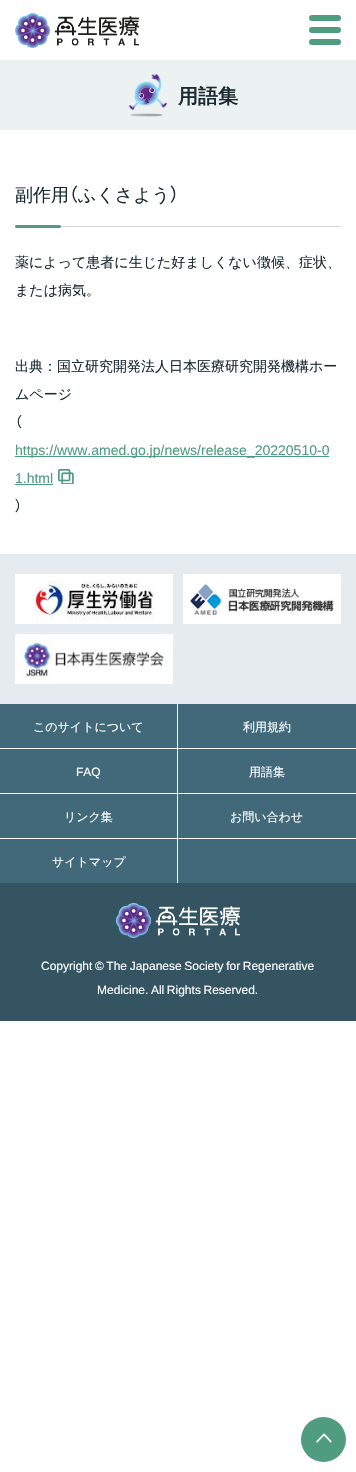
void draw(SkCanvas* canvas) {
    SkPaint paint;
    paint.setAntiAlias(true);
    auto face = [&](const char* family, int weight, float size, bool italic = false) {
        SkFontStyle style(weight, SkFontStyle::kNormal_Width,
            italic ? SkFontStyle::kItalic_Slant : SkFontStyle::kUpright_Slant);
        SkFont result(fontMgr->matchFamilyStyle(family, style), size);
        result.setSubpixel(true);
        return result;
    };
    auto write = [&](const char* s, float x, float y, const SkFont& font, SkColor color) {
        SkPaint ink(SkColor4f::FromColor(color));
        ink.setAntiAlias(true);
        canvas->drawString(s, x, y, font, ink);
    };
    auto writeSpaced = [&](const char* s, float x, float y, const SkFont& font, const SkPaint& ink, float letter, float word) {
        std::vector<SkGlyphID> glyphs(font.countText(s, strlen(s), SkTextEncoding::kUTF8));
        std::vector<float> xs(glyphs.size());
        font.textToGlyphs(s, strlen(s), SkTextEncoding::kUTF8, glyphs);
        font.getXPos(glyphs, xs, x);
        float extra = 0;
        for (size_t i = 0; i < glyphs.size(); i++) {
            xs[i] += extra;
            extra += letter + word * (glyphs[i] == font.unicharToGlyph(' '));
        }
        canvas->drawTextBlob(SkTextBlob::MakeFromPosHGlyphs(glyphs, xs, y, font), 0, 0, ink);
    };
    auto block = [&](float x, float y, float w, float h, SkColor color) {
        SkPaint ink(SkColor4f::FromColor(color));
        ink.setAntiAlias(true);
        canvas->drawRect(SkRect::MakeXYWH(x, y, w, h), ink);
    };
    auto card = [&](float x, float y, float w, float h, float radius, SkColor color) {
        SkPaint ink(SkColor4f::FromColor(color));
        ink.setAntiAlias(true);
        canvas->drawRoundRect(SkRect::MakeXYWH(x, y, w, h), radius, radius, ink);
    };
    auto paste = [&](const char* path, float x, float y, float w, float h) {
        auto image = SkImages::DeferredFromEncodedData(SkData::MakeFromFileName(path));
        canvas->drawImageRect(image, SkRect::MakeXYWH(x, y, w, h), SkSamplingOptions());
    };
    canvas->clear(SK_ColorWHITE);
    paste("pic1.png", 15, 13, 124, 35);
    card(309, 15, 32, 6, 3, SkColorSetRGB(80, 156, 128));
    card(309, 27, 32, 6, 3, SkColorSetRGB(80, 156, 128));
    card(309, 39, 32, 6, 3, SkColorSetRGB(80, 156, 128));
    block(0, 60, 356, 70, SkColorSetRGB(236, 241, 242));
    paste("pic2.png", 128, 73, 40, 44);
    auto kFont1 = face("WenQuanYi Zen Hei", 700, 20);
    write("用語集", 178, 103, kFont1, SkColorSetRGB(26, 42, 49));
    auto kFont2 = face("WenQuanYi Zen Hei", 500, 18);
    write("副作用", 15, 201, kFont2, SkColorSetRGB(26, 42, 49));
    auto kFont3 = face("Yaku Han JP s", 400, 18);
    write("（", 69, 201, kFont3, SkColorSetRGB(26, 42, 49));
    write("ふくさよう", 78, 201, kFont2, SkColorSetRGB(26, 42, 49));
    write("）", 170, 201, kFont3, SkColorSetRGB(26, 42, 49));
    block(15, 226, 326, 1, SkColorSetRGB(215, 215, 215));
    card(15, 225, 46, 3, 1.5f, SkColorSetRGB(80, 156, 128));
    auto kFont4 = face("WenQuanYi Zen Hei", 500, 14);
    write("薬によって患者に生じた好ましくない徴候、症状、", 15, 267, kFont4, SkColorSetRGB(26, 42, 49));
    write("または病気。", 15, 295, kFont4, SkColorSetRGB(26, 42, 49));
    write("出典：国立研究開発法人日本医療研究開発機構ホー", 15, 371, kFont4, SkColorSetRGB(26, 42, 49));
    write("ムページ", 15, 399, kFont4, SkColorSetRGB(26, 42, 49));
    auto kFont5 = face("Yaku Han JP s", 400, 14);
    write("（", 15, 427, kFont5, SkColorSetRGB(26, 42, 49));
    block(15, 456, 314, 1, SkColorSetRGB(80, 156, 128));
    auto kFont6 = face("Liberation Sans", 400, 14);
    write("https://www.amed.go.jp/news/release_20220510-0", 15, 455, kFont6, SkColorSetRGB(80, 156, 128));
    write("1.html", 15, 483, kFont6, SkColorSetRGB(80, 156, 128));
    block(15, 484, 38, 1, SkColorSetRGB(80, 156, 128));
    paste("pic3.png", 58, 469, 16, 15);
    write("）", 15, 511, kFont5, SkColorSetRGB(26, 42, 49));
    block(0, 554, 356, 150, SkColorSetRGB(230, 235, 240));
    paste("pic4.png", 15, 574, 158, 50);
    paste("pic5.png", 183, 574, 158, 50);
    paste("pic6.png", 15, 634, 158, 50);
    block(0, 704, 356, 179, SkColorSetRGB(65, 105, 122));
    block(177, 704, 1, 180, SK_ColorWHITE);
    block(0, 748, 356, 1, SK_ColorWHITE);
    auto kFont7 = face("WenQuanYi Zen Hei", 500, 12);
    write("このサイトについて", 33, 731, kFont7, SK_ColorWHITE);
    write("利用規約", 243, 731, kFont7, SK_ColorWHITE);
    block(0, 793, 356, 1, SK_ColorWHITE);
    auto kFont8 = face("Liberation Sans", 400, 12);
    write("FAQ", 76, 776, kFont8, SK_ColorWHITE);
    write("用語集", 249, 776, kFont7, SK_ColorWHITE);
    block(0, 838, 356, 1, SK_ColorWHITE);
    write("リンク集", 64, 821, kFont7, SK_ColorWHITE);
    write("お問い合わせ", 230, 821, kFont7, SK_ColorWHITE);
    write("サイトマップ", 52, 866, kFont7, SK_ColorWHITE);
    block(0, 883, 356, 138, SkColorSetRGB(52, 84, 98));
    paste("pic7.png", 116, 903, 124, 35);
    paint.setColor(SK_ColorWHITE);
    writeSpaced("Copyright © The Japanese Society for Regenerative", 41, 970, kFont8, paint, 0, -0.75f);
    writeSpaced("Medicine. All Rights Reserved.", 97, 994, kFont8, paint, 0, -0.75f);
    paint.setColor(SkColorSetRGB(80, 156, 128));
    canvas->drawCircle(323.5f, 1439.5f, 22.5f, paint);
    paste("pic8.png", 316, 1433, 16, 10);
}
